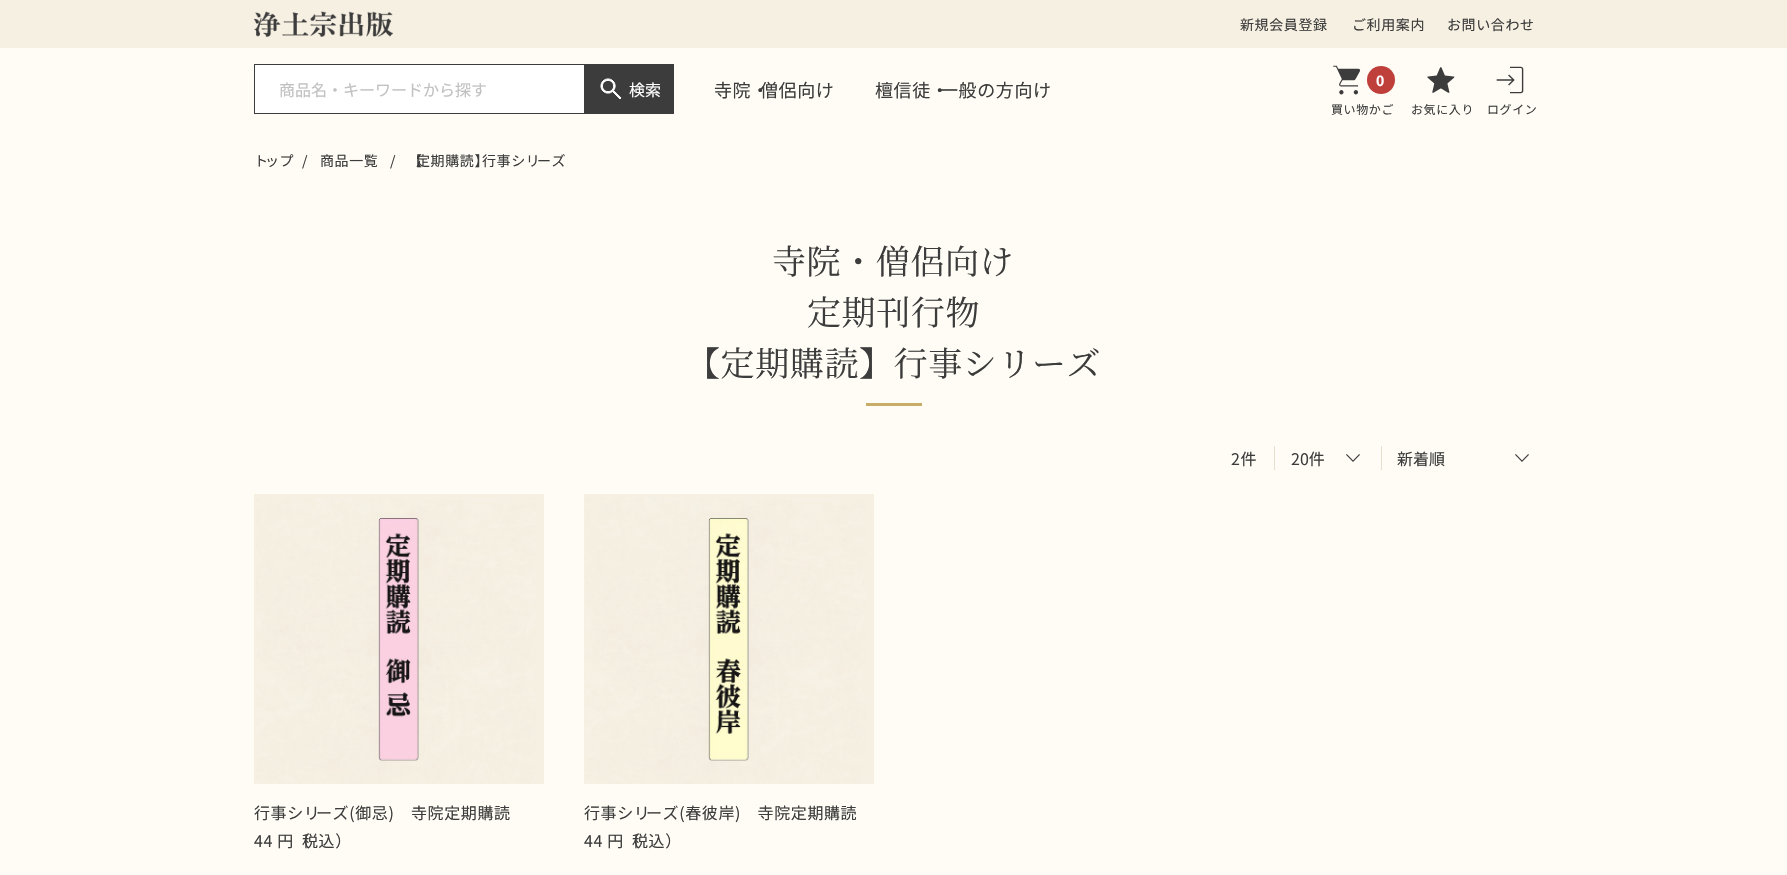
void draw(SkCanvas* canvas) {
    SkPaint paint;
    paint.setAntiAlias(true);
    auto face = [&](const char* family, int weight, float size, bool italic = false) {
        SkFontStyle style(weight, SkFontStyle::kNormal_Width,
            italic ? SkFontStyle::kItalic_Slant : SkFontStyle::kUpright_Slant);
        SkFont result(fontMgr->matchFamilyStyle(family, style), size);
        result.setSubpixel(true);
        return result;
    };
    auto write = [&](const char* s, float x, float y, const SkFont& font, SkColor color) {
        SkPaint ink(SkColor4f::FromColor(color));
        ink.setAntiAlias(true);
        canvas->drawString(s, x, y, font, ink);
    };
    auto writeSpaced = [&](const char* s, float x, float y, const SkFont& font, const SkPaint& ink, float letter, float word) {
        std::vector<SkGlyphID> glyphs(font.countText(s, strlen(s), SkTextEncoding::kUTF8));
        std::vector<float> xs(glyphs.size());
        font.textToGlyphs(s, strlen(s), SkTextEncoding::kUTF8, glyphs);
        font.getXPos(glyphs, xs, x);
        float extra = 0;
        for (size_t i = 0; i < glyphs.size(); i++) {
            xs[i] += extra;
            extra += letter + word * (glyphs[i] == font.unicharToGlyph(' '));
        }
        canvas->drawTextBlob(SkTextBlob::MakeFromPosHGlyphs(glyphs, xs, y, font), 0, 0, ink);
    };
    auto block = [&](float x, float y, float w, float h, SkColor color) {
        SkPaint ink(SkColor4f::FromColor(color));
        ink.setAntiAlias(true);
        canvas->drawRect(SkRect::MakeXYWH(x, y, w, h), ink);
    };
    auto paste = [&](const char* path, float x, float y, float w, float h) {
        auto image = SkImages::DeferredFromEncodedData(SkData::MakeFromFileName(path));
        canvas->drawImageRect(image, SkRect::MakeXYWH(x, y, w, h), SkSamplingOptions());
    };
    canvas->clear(SkColorSetRGB(255, 252, 245));
    block(0, 0, 1787, 48, SkColorSetRGB(246, 240, 226));
    paste("pic1.png", 254, 11, 139, 26);
    auto kFont1 = face("Noto Sans JP", 400, 14);
    paint.setColor(SkColorSetRGB(60, 60, 60));
    writeSpaced("新規会員登録", 1240, 30, kFont1, paint, 0.6f, 0);
    writeSpaced("ご利用案内", 1352, 30, kFont1, paint, 0.6f, 0);
    writeSpaced("お問い合わせ", 1447, 30, kFont1, paint, 0.6f, 0);
    paint.setColor(SK_ColorWHITE);
    canvas->drawRect(SkRect::MakeXYWH(254.5f, 64.5f, 330, 49), paint);
    paint.setStyle(SkPaint::kStroke_Style);
    paint.setStrokeWidth(1);
    paint.setColor(SkColorSetRGB(60, 60, 60));
    canvas->drawRect(SkRect::MakeXYWH(254.5f, 64.5f, 330, 49), paint);
    auto kFont2 = face("Noto Sans JP", 400, 16);
    write("商品名・キーワードから探す", 279, 96, kFont2, SkColorSetRGB(193, 193, 193));
    block(585, 64, 89, 50, SkColorSetRGB(60, 60, 60));
    paste("pic2.png", 600, 78, 22, 21);
    write("検索", 629, 96, kFont2, SK_ColorWHITE);
    auto kFont3 = face("Noto Sans JP", 400, 18);
    paint.setStyle(SkPaint::kFill_Style);
    writeSpaced("寺院・", 714, 97, kFont3, paint, 0.6f, 0);
    writeSpaced("僧侶向け", 760, 97, kFont3, paint, 0.6f, 0);
    writeSpaced("檀信徒・", 875, 97, kFont3, paint, 0.6f, 0);
    writeSpaced("一般の方向け", 940, 97, kFont3, paint, 0.6f, 0);
    paste("pic3.png", 1333, 65, 28, 30);
    paint.setColor(SkColorSetRGB(191, 63, 59));
    canvas->drawCircle(1381, 80, 14, paint);
    auto kFont4 = face("Noto Sans JP", 700, 14);
    paint.setColor(SK_ColorWHITE);
    writeSpaced("0", 1376, 86, kFont4, paint, 0.6f, 0);
    auto kFont5 = face("Noto Sans JP", 400, 12);
    paint.setColor(SkColorSetRGB(60, 60, 60));
    writeSpaced("買い物かご", 1331, 114, kFont5, paint, 0.6f, 0);
    paste("pic4.png", 1427, 67, 28, 26);
    writeSpaced("お気に入り", 1411, 114, kFont5, paint, 0.6f, 0);
    paste("pic5.png", 1496, 66, 28, 28);
    writeSpaced("ログイン", 1487, 114, kFont5, paint, 0.6f, 0);
    writeSpaced("ト", 254, 166, kFont1, paint, 0.6f, 0);
    writeSpaced("ップ", 265, 166, kFont1, paint, 0.6f, 0);
    writeSpaced("/", 302, 166, kFont1, paint, 0.6f, 0);
    writeSpaced("商品一覧", 320, 166, kFont1, paint, 0.6f, 0);
    writeSpaced("/", 390, 166, kFont1, paint, 0.6f, 0);
    writeSpaced("【", 408, 166, kFont1, paint, 0.6f, 0);
    writeSpaced("定期購読】", 416, 166, kFont1, paint, 0.6f, 0);
    writeSpaced("行事シリ", 482, 166, kFont1, paint, 0.6f, 0);
    writeSpaced("ーズ", 537, 166, kFont1, paint, 0.6f, 0);
    auto kFont6 = face("Noto Serif JP", 400, 34);
    writeSpaced("寺院・僧侶向け", 772, 274, kFont6, paint, 0.6f, 0);
    writeSpaced("定期刊行物", 807, 325, kFont6, paint, 0.6f, 0);
    writeSpaced("【定期購読】行事シリーズ", 686, 376, kFont6, paint, 0.6f, 0);
    block(866, 403, 56, 3, SkColorSetRGB(199, 173, 104));
    writeSpaced("2件", 1231, 465, kFont2, paint, 0.6f, 0);
    block(1274, 446, 1, 24, SkColorSetRGB(229, 223, 208));
    write("20件", 1291, 465, kFont2, SkColorSetRGB(60, 60, 60));
    paste("pic6.png", 1346, 454, 14, 8);
    block(1381, 446, 1, 24, SkColorSetRGB(229, 223, 208));
    write("新着順", 1397, 465, kFont2, SkColorSetRGB(60, 60, 60));
    paste("pic6.png", 1515, 454, 14, 8);
    block(254, 494, 290, 290, SkColorSetRGB(246, 240, 226));
    paste("pic7.png", 256, 498, 280, 286);
    paste("pic8.png", 378, 518, 41, 243);
    writeSpaced("行事シリ", 254, 819, kFont2, paint, 0.6f, 0);
    writeSpaced("ーズ(御忌)　寺院定期購読", 316, 819, kFont2, paint, 0.6f, 0);
    writeSpaced("44 円（", 254, 847, kFont2, paint, 0.6f, 0);
    writeSpaced("税込）", 302, 847, kFont2, paint, 0.6f, 0);
    block(584, 494, 290, 290, SkColorSetRGB(246, 240, 226));
    paste("pic7.png", 586, 498, 280, 286);
    paste("pic9.png", 708, 518, 41, 243);
    writeSpaced("行事シリ", 584, 819, kFont2, paint, 0.6f, 0);
    writeSpaced("ーズ(春彼岸)　寺院定期購読", 646, 819, kFont2, paint, 0.6f, 0);
    writeSpaced("44 円（", 584, 847, kFont2, paint, 0.6f, 0);
    writeSpaced("税込）", 632, 847, kFont2, paint, 0.6f, 0);
}
